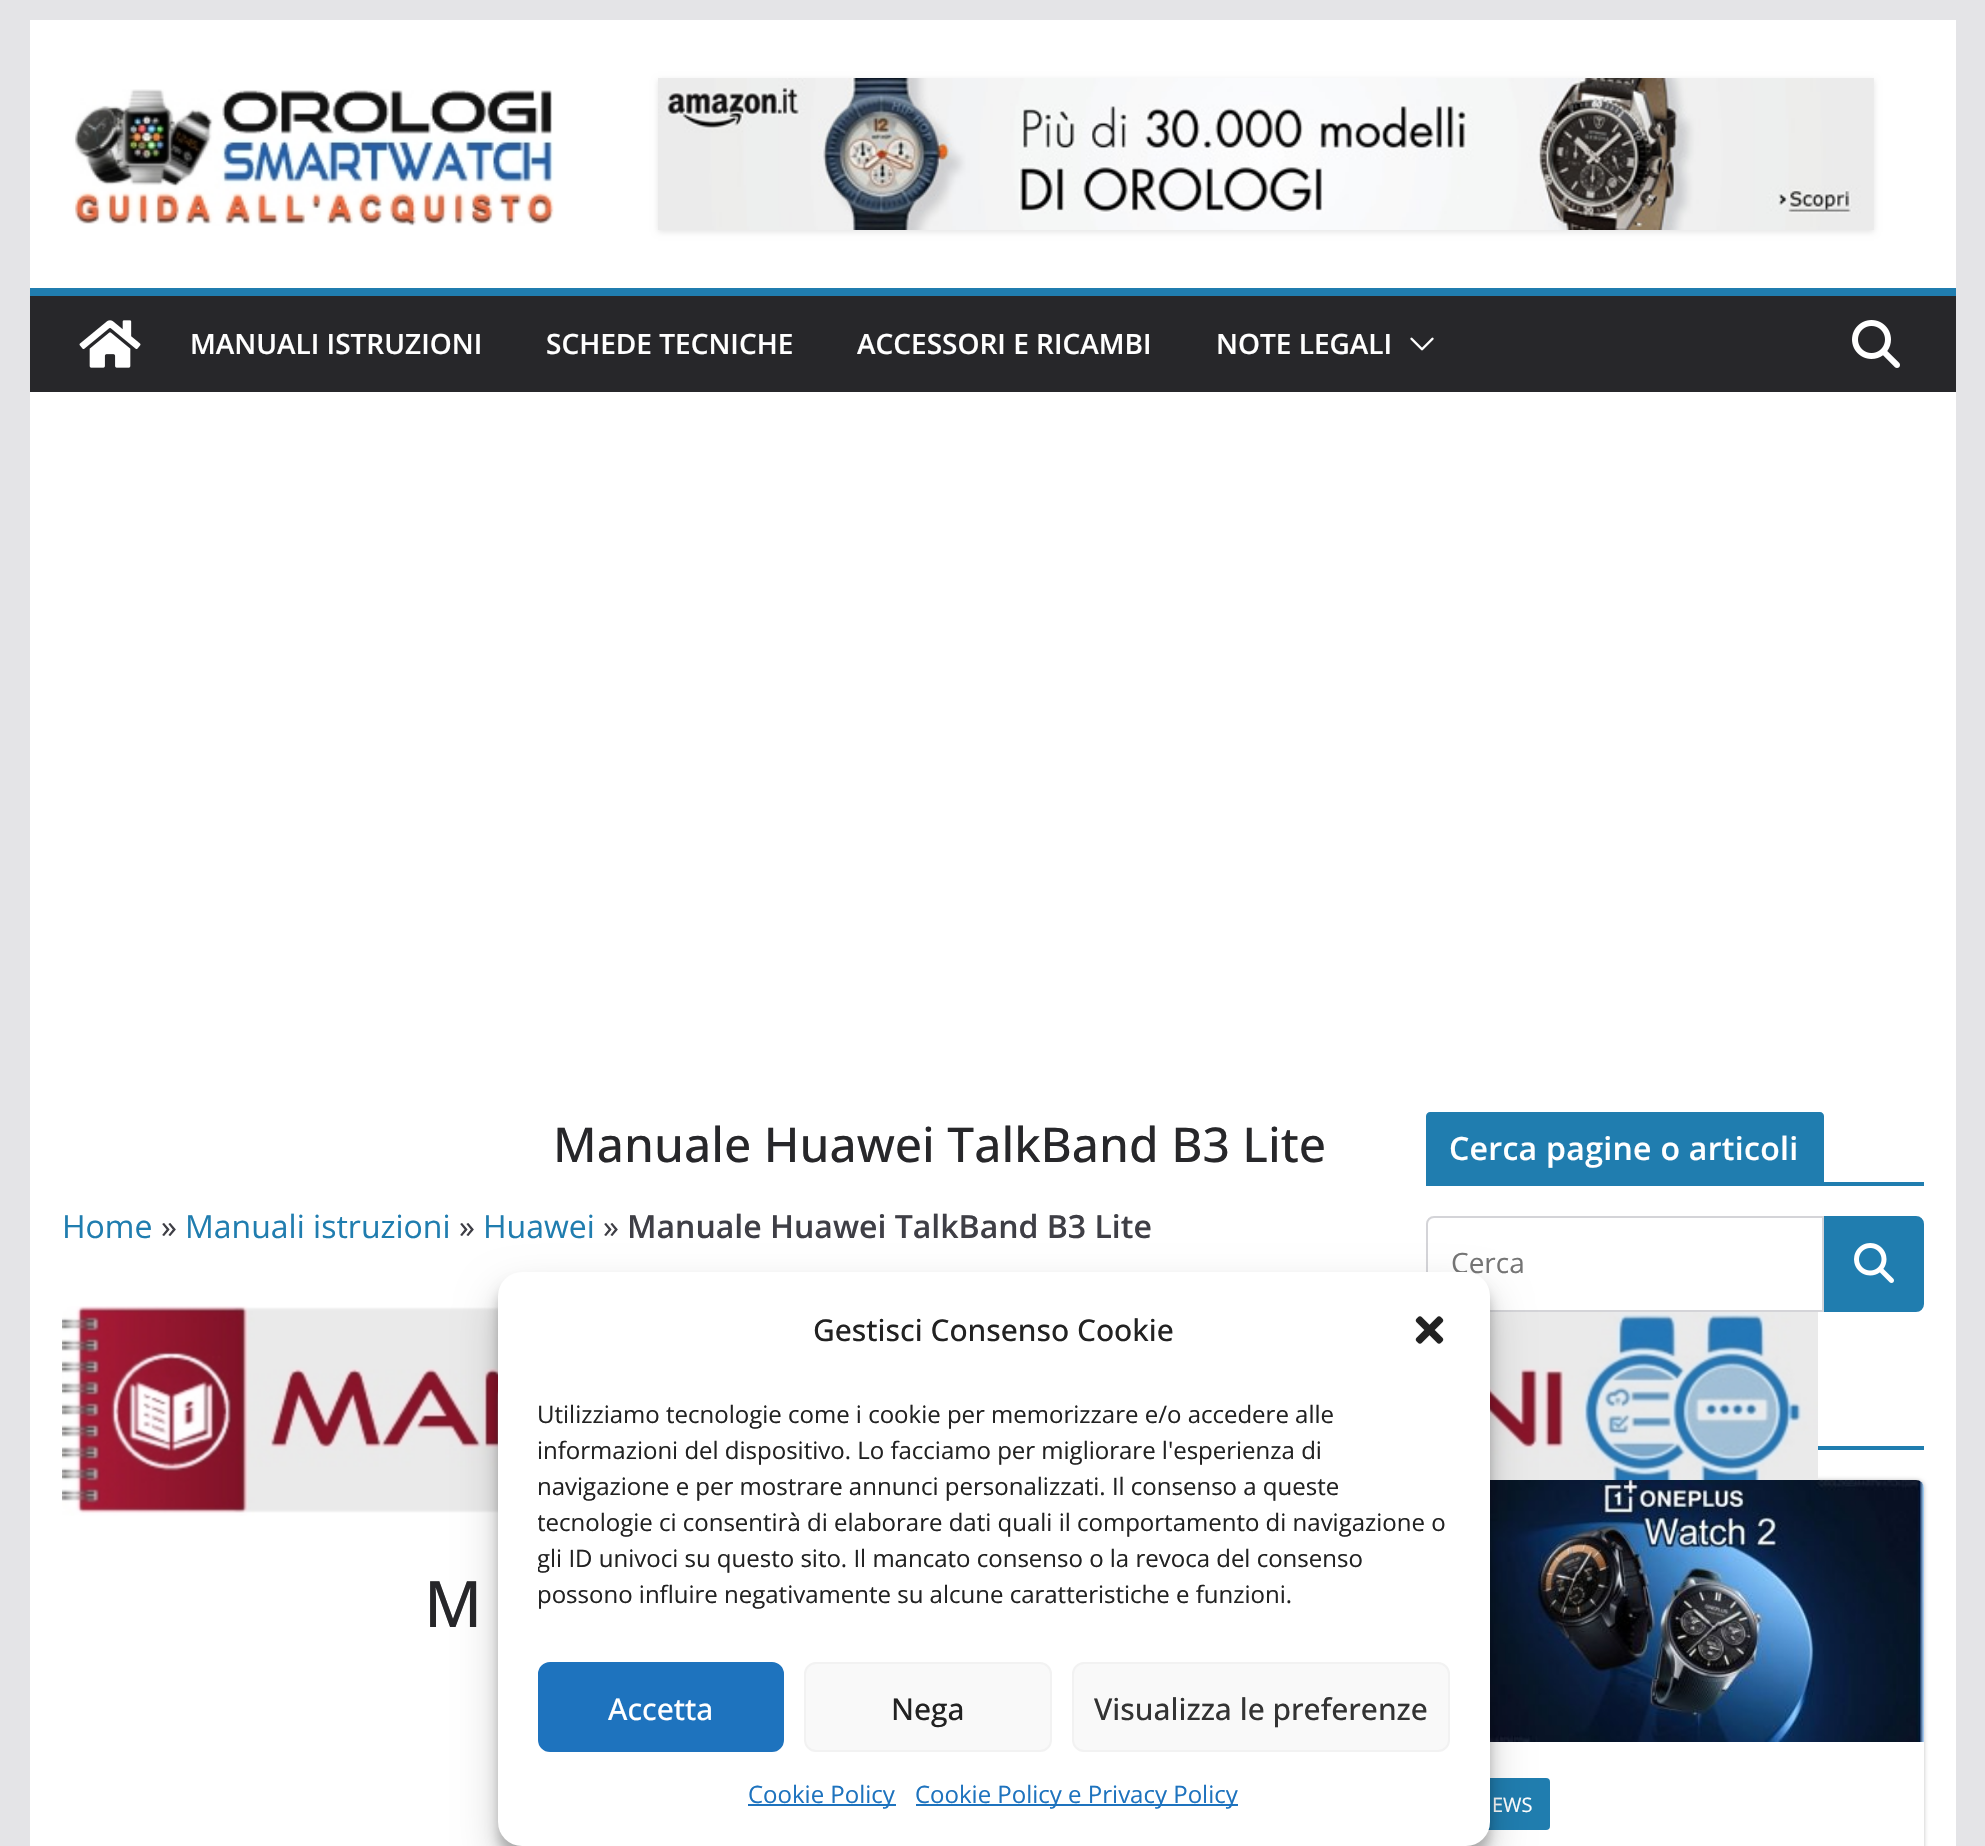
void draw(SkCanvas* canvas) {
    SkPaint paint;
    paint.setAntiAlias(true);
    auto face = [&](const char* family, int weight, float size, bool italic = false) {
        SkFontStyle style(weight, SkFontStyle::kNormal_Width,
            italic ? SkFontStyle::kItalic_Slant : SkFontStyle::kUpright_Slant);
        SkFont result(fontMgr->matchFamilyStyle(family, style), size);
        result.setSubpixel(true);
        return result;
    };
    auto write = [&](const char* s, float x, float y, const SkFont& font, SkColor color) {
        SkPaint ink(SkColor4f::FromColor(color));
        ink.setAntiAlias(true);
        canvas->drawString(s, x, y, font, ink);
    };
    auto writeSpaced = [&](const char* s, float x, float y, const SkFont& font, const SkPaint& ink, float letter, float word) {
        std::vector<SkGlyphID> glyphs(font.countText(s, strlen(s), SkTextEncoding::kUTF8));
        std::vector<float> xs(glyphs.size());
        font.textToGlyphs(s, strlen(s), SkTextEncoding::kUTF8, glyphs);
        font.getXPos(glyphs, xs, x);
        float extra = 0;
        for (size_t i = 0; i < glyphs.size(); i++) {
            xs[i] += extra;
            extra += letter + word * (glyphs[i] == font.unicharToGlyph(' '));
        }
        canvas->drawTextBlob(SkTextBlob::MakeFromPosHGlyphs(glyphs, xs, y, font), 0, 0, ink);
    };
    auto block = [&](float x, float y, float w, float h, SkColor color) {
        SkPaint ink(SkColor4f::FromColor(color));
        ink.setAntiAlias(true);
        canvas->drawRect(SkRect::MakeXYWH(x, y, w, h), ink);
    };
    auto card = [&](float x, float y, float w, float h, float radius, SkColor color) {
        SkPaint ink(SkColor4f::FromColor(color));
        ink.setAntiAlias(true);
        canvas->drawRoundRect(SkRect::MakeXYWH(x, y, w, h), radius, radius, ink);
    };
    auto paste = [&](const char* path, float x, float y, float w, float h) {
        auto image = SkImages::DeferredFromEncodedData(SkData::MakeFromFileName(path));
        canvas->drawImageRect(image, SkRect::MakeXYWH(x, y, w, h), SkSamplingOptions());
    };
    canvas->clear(SkColorSetRGB(228, 228, 231));
    block(30, 20, 1926, 268, SK_ColorWHITE);
    paste("pic1.png", 73, 89, 481, 137);
    paint.setColor(SkColorSetARGB(26, 0, 0, 0));
    paint.setMaskFilter(SkMaskFilter::MakeBlur(kNormal_SkBlurStyle, 3));
    canvas->drawRect(SkRect::MakeXYWH(658, 80, 1216, 152), paint);
    paint.setMaskFilter(nullptr);
    paste("pic2.png", 658, 78, 1216, 152);
    block(30, 296, 1926, 96, SkColorSetRGB(39, 39, 42));
    block(30, 288, 1926, 8, SkColorSetRGB(32, 125, 175));
    paste("pic3.png", 79, 320, 62, 48);
    auto kFont1 = face("Open Sans", 600, 28);
    write("MANUALI ISTRUZIONI", 190, 354, kFont1, SK_ColorWHITE);
    write("SCHEDE TECNICHE", 546, 354, kFont1, SK_ColorWHITE);
    write("ACCESSORI E RICAMBI", 857, 354, kFont1, SK_ColorWHITE);
    write("NOTE LEGALI", 1216, 354, kFont1, SK_ColorWHITE);
    paste("pic4.png", 1410, 337, 24, 14);
    paste("pic5.png", 1852, 320, 48, 48);
    block(30, 392, 1926, 1454, SK_ColorWHITE);
    auto kFont2 = face("Open Sans", 500, 48);
    write("Manuale Huawei TalkBand B3 Lite", 553, 1162, kFont2, SkColorSetRGB(39, 39, 42));
    auto kFont3 = face("Open Sans", 400, 32);
    write("Home", 62, 1238, kFont3, SkColorSetRGB(32, 125, 175));
    write("»", 161, 1238, kFont3, SkColorSetRGB(63, 63, 70));
    write("Manuali istruzioni", 185, 1238, kFont3, SkColorSetRGB(32, 125, 175));
    write("»", 459, 1238, kFont3, SkColorSetRGB(63, 63, 70));
    write("Huawei", 483, 1238, kFont3, SkColorSetRGB(32, 125, 175));
    write("»", 603, 1238, kFont3, SkColorSetRGB(63, 63, 70));
    auto kFont4 = face("Open Sans", 600, 32);
    write("Manuale Huawei TalkBand B3 Lite", 627, 1238, kFont4, SkColorSetRGB(63, 63, 70));
    canvas->save();
    canvas->clipPath(SkPathBuilder(SkPathFillType::kEvenOdd).moveTo(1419, 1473).lineTo(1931, 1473).lineTo(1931, 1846).lineTo(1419, 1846).close().moveTo(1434, 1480).lineTo(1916, 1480).cubicTo(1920.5f, 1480, 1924, 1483.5f, 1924, 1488).lineTo(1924, 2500).cubicTo(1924, 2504.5f, 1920.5f, 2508, 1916, 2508).lineTo(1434, 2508).cubicTo(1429.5f, 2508, 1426, 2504.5f, 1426, 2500).lineTo(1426, 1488).cubicTo(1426, 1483.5f, 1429.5f, 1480, 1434, 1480).close().detach(), true);
    paint.setColor(SkColorSetARGB(61, 0, 0, 0));
    paint.setMaskFilter(SkMaskFilter::MakeBlur(kNormal_SkBlurStyle, 2));
    canvas->drawRoundRect(SkRect::MakeXYWH(1426, 1480, 498, 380), 8, 8, paint);
    paint.setMaskFilter(nullptr);
    canvas->restore();
    paste("pic6.png", 62, 1306, 1756, 210);
    auto kFont5 = face("Open Sans", 500, 64);
    write("M", 424, 1627, kFont5, SkColorSetRGB(39, 39, 42));
    block(1426, 1182, 498, 4, SkColorSetRGB(32, 125, 175));
    paint.setColor(SkColorSetRGB(32, 125, 175));
    canvas->drawPath(SkPathBuilder().moveTo(1430, 1112).lineTo(1820, 1112).cubicTo(1822, 1112, 1824, 1114, 1824, 1116).lineTo(1824, 1182).lineTo(1426, 1182).lineTo(1426, 1116).cubicTo(1426, 1114, 1428, 1112, 1430, 1112).close().detach(), paint);
    paint.setColor(SK_ColorWHITE);
    writeSpaced("Cerca pagine o articoli", 1449, 1160, kFont4, paint, 0.3f, 0);
    canvas->drawPath(SkPathBuilder().moveTo(1434, 1217).lineTo(1823, 1217).lineTo(1823, 1311).lineTo(1434, 1311).cubicTo(1430, 1311, 1427, 1308, 1427, 1304).lineTo(1427, 1224).cubicTo(1427, 1220, 1430, 1217, 1434, 1217).close().detach(), paint);
    paint.setStyle(SkPaint::kStroke_Style);
    paint.setStrokeWidth(2);
    paint.setColor(SkColorSetRGB(212, 212, 216));
    canvas->drawPath(SkPathBuilder().moveTo(1434, 1217).lineTo(1823, 1217).lineTo(1823, 1311).lineTo(1434, 1311).cubicTo(1430, 1311, 1427, 1308, 1427, 1304).lineTo(1427, 1224).cubicTo(1427, 1220, 1430, 1217, 1434, 1217).close().detach(), paint);
    auto kFont6 = face("Open Sans", 400, 28);
    write("Cerca", 1451, 1273, kFont6, SkColorSetRGB(117, 117, 117));
    paint.setStyle(SkPaint::kFill_Style);
    paint.setColor(SkColorSetRGB(32, 125, 175));
    canvas->drawPath(SkPathBuilder().moveTo(1825, 1217).lineTo(1916, 1217).cubicTo(1920, 1217, 1923, 1220, 1923, 1224).lineTo(1923, 1304).cubicTo(1923, 1308, 1920, 1311, 1916, 1311).lineTo(1825, 1311).close().detach(), paint);
    paint.setStyle(SkPaint::kStroke_Style);
    canvas->drawPath(SkPathBuilder().moveTo(1825, 1217).lineTo(1916, 1217).cubicTo(1920, 1217, 1923, 1220, 1923, 1224).lineTo(1923, 1304).cubicTo(1923, 1308, 1920, 1311, 1916, 1311).lineTo(1825, 1311).close().detach(), paint);
    paste("pic7.png", 1854, 1243, 40, 40);
    block(1818, 1446, 106, 4, SkColorSetRGB(32, 125, 175));
    paste("pic8.png", 1490, 1480, 434, 262);
    card(1462, 1778, 88, 52, 4, SkColorSetRGB(32, 125, 175));
    auto kFont7 = face("Open Sans", 400, 20);
    write("EWS", 1492, 1812, kFont7, SK_ColorWHITE);
    paint.setStyle(SkPaint::kFill_Style);
    paint.setColor(SkColorSetARGB(59, 0, 0, 0));
    paint.setMaskFilter(SkMaskFilter::MakeBlur(kNormal_SkBlurStyle, 6));
    canvas->drawRoundRect(SkRect::MakeXYWH(498, 1284, 992, 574), 24, 24, paint);
    paint.setMaskFilter(nullptr);
    paint.setColor(SkColorSetARGB(48, 0, 0, 0));
    paint.setMaskFilter(SkMaskFilter::MakeBlur(kNormal_SkBlurStyle, 20));
    canvas->drawRoundRect(SkRect::MakeXYWH(498, 1292, 992, 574), 24, 24, paint);
    paint.setMaskFilter(nullptr);
    card(498, 1272, 992, 574, 24, SK_ColorWHITE);
    auto kFont8 = face("Open Sans", 500, 30);
    write("Gestisci Consenso Cookie", 813, 1341, kFont8, SkColorSetRGB(34, 34, 34));
    paste("pic9.png", 1415, 1316, 29, 28);
    auto kFont9 = face("Open Sans", 400, 24);
    write("Utilizziamo tecnologie come i cookie per memorizzare e/o accedere alle", 537, 1423, kFont9, SkColorSetRGB(34, 34, 34));
    write("informazioni del dispositivo. Lo facciamo per migliorare l'esperienza di", 537, 1459, kFont9, SkColorSetRGB(34, 34, 34));
    write("navigazione e per mostrare annunci personalizzati. Il consenso a queste", 537, 1495, kFont9, SkColorSetRGB(34, 34, 34));
    canvas->save();
    canvas->clipRect(SkRect::MakeXYWH(538, 1396, 912, 226));
    write("tecnologie ci consentirà di elaborare dati quali il comportamento di navigazione o", 537, 1531, kFont9, SkColorSetRGB(34, 34, 34));
    write("gli ID univoci su questo sito. Il mancato consenso o la revoca del consenso", 537, 1567, kFont9, SkColorSetRGB(34, 34, 34));
    canvas->restore();
    write("possono influire negativamente su alcune caratteristiche e funzioni.", 537, 1603, kFont9, SkColorSetRGB(34, 34, 34));
    paint.setColor(SkColorSetRGB(30, 115, 190));
    canvas->drawRoundRect(SkRect::MakeXYWH(539, 1663, 244, 88), 11, 11, paint);
    paint.setStyle(SkPaint::kStroke_Style);
    canvas->drawRoundRect(SkRect::MakeXYWH(539, 1663, 244, 88), 11, 11, paint);
    write("Accetta", 608, 1720, kFont8, SK_ColorWHITE);
    paint.setStyle(SkPaint::kFill_Style);
    paint.setColor(SkColorSetRGB(249, 249, 249));
    canvas->drawRoundRect(SkRect::MakeXYWH(805, 1663, 246, 88), 11, 11, paint);
    paint.setStyle(SkPaint::kStroke_Style);
    paint.setColor(SkColorSetRGB(242, 242, 242));
    canvas->drawRoundRect(SkRect::MakeXYWH(805, 1663, 246, 88), 11, 11, paint);
    write("Nega", 891, 1720, kFont8, SkColorSetRGB(34, 34, 34));
    paint.setStyle(SkPaint::kFill_Style);
    paint.setColor(SkColorSetRGB(249, 249, 249));
    canvas->drawRoundRect(SkRect::MakeXYWH(1073, 1663, 376, 88), 11, 11, paint);
    paint.setStyle(SkPaint::kStroke_Style);
    paint.setColor(SkColorSetRGB(242, 242, 242));
    canvas->drawRoundRect(SkRect::MakeXYWH(1073, 1663, 376, 88), 11, 11, paint);
    write("Visualizza le preferenze", 1094, 1720, kFont8, SkColorSetRGB(51, 51, 51));
    block(748, 1804, 148, 2, SkColorSetRGB(30, 115, 190));
    write("Cookie Policy", 748, 1803, kFont9, SkColorSetRGB(30, 115, 190));
    block(916, 1804, 322, 2, SkColorSetRGB(30, 115, 190));
    write("Cookie Policy e Privacy Policy", 915, 1803, kFont9, SkColorSetRGB(30, 115, 190));
}
